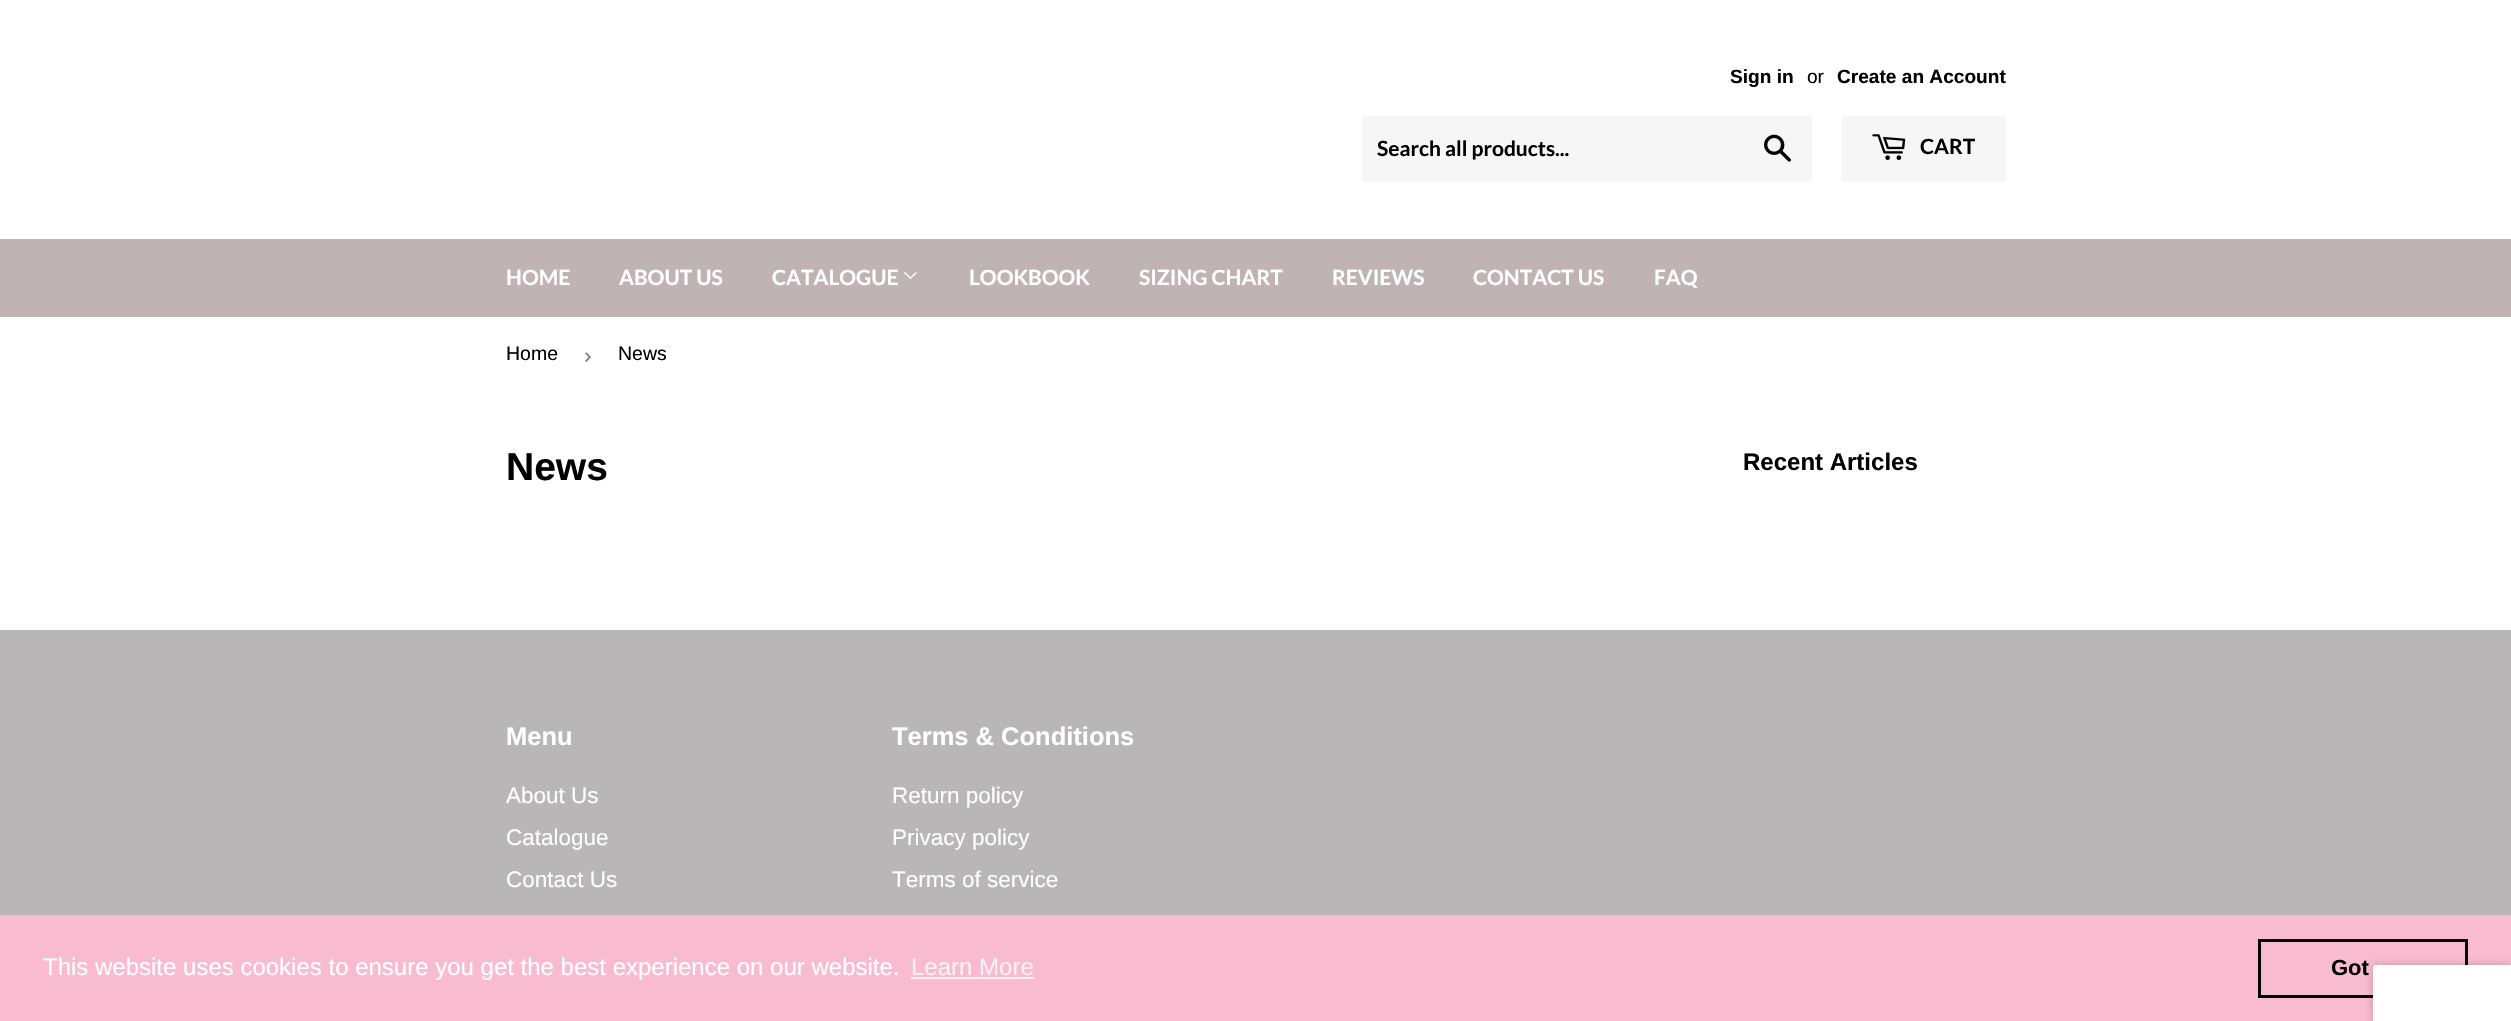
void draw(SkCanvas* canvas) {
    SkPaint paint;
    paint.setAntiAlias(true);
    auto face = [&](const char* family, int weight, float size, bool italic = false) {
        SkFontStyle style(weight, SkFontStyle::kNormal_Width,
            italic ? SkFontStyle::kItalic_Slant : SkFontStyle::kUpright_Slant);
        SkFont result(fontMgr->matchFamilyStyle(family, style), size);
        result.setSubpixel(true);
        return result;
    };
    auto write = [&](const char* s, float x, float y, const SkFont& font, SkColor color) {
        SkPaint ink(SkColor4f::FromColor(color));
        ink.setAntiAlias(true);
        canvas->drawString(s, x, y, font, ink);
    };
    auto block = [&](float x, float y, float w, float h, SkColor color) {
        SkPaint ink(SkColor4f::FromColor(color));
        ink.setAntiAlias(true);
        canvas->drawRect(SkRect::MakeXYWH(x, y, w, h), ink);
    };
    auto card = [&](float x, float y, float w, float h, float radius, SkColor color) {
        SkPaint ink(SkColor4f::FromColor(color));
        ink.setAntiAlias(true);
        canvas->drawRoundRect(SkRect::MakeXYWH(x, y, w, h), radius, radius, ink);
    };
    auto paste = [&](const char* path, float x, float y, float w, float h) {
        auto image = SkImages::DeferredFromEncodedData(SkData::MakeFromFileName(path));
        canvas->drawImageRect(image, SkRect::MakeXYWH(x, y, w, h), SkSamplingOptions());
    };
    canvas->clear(SK_ColorWHITE);
    auto kFont1 = face("Liberation Sans", 700, 19.1f);
    write("Sign in", 1730, 83, kFont1, SK_ColorBLACK);
    auto kFont2 = face("Liberation Sans", 400, 19.1f);
    write("or", 1807, 83, kFont2, SK_ColorBLACK);
    write("Create an Account", 1837, 83, kFont1, SK_ColorBLACK);
    card(1362, 116, 450, 66, 3, SkColorSetRGB(246, 246, 246));
    auto kFont3 = face("Lato", 700, 21);
    write("Search all products...", 1377, 156, kFont3, SK_ColorBLACK);
    paste("pic1.png", 1764, 134, 27, 28);
    card(1841, 116, 165, 66, 3, SkColorSetRGB(246, 246, 246));
    paste("pic2.png", 1872, 134, 34, 26);
    write("CART", 1920, 154, kFont3, SK_ColorBLACK);
    block(0, 239, 2511, 78, SkColorSetRGB(191, 179, 179));
    write("HOME", 506, 285, kFont3, SK_ColorWHITE);
    write("ABOUT US", 619, 285, kFont3, SK_ColorWHITE);
    write("CATALOGUE", 772, 285, kFont3, SK_ColorWHITE);
    paste("pic3.png", 904, 272, 13, 7);
    write("LOOKBOOK", 969, 285, kFont3, SK_ColorWHITE);
    write("SIZING CHART", 1139, 285, kFont3, SK_ColorWHITE);
    write("REVIEWS", 1332, 285, kFont3, SK_ColorWHITE);
    write("CONTACT US", 1473, 285, kFont3, SK_ColorWHITE);
    write("FAQ", 1654, 285, kFont3, SK_ColorWHITE);
    auto kFont4 = face("Liberation Sans", 400, 19.5f);
    write("Home", 506, 360, kFont4, SK_ColorBLACK);
    auto kFont5 = face("Liberation Sans", 400, 22.5f);
    write("›", 584, 363, kFont5, SkColorSetRGB(118, 118, 118));
    write("News", 618, 360, kFont4, SK_ColorBLACK);
    auto kFont6 = face("Liberation Sans", 700, 39);
    write("News", 506, 480, kFont6, SK_ColorBLACK);
    auto kFont7 = face("Liberation Sans", 700, 24);
    write("Recent Articles", 1743, 470, kFont7, SK_ColorBLACK);
    block(0, 630, 2511, 285, SkColorSetRGB(184, 182, 182));
    auto kFont8 = face("Liberation Sans", 700, 25.5f);
    write("Menu", 506, 745, kFont8, SK_ColorWHITE);
    write("About Us", 506, 803, kFont5, SK_ColorWHITE);
    write("Catalogue", 506, 845, kFont5, SK_ColorWHITE);
    write("Contact Us", 506, 887, kFont5, SK_ColorWHITE);
    write("Terms & Conditions", 892, 745, kFont8, SK_ColorWHITE);
    write("Return policy", 892, 803, kFont5, SK_ColorWHITE);
    write("Privacy policy", 892, 845, kFont5, SK_ColorWHITE);
    write("Terms of service", 892, 887, kFont5, SK_ColorWHITE);
    block(0, 915, 2511, 106, SkColorSetRGB(248, 187, 208));
    auto kFont9 = face("Liberation Sans", 400, 24);
    write("This website uses cookies to ensure you get the best experience on our website.", 43, 975, kFont9, SK_ColorWHITE);
    write("Learn More", 911, 975, kFont9, SkColorSetRGB(254, 241, 246));
    block(911, 977, 123, 2, SkColorSetRGB(254, 241, 246));
    paint.setStyle(SkPaint::kStroke_Style);
    paint.setStrokeWidth(3);
    paint.setColor(SK_ColorBLACK);
    canvas->drawRect(SkRect::MakeXYWH(2259.5f, 940.5f, 207, 56), paint);
    auto kFont10 = face("Liberation Sans", 700, 22);
    write("Got", 2331, 975, kFont10, SK_ColorBLACK);
    paint.setStyle(SkPaint::kFill_Style);
    paint.setColor(SkColorSetARGB(51, 0, 0, 0));
    paint.setMaskFilter(SkMaskFilter::MakeBlur(kNormal_SkBlurStyle, 4));
    canvas->drawRoundRect(SkRect::MakeXYWH(2373, 965, 138, 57), 3, 3, paint);
    paint.setMaskFilter(nullptr);
    paint.setColor(SK_ColorWHITE);
    canvas->drawPath(SkPathBuilder().moveTo(2376, 965).lineTo(2511, 965).lineTo(2511, 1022).lineTo(2373, 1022).lineTo(2373, 968).cubicTo(2373, 966.5f, 2374.5f, 965, 2376, 965).close().detach(), paint);
}
